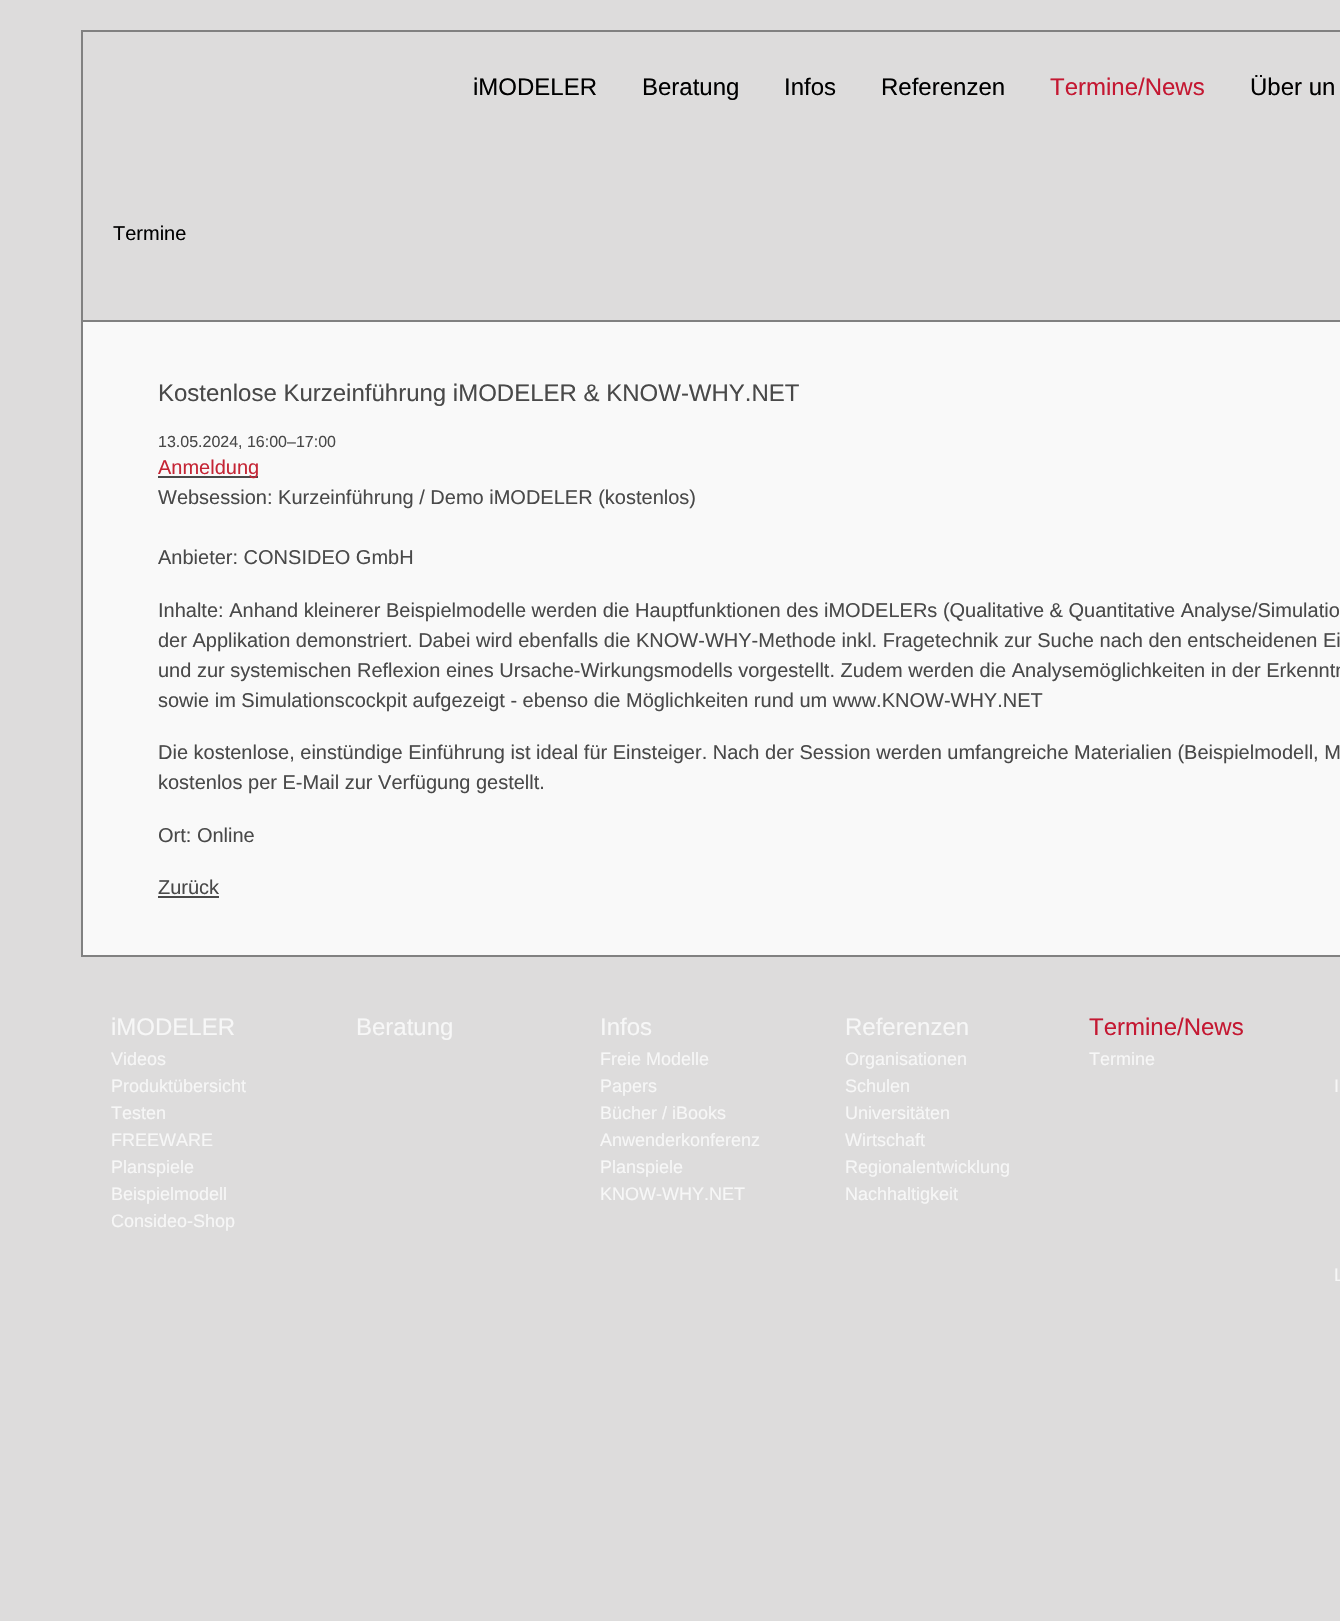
void draw(SkCanvas* canvas) {
    SkPaint paint;
    paint.setAntiAlias(true);
    auto face = [&](const char* family, int weight, float size, bool italic = false) {
        SkFontStyle style(weight, SkFontStyle::kNormal_Width,
            italic ? SkFontStyle::kItalic_Slant : SkFontStyle::kUpright_Slant);
        SkFont result(fontMgr->matchFamilyStyle(family, style), size);
        result.setSubpixel(true);
        return result;
    };
    auto write = [&](const char* s, float x, float y, const SkFont& font, SkColor color) {
        SkPaint ink(SkColor4f::FromColor(color));
        ink.setAntiAlias(true);
        canvas->drawString(s, x, y, font, ink);
    };
    auto block = [&](float x, float y, float w, float h, SkColor color) {
        SkPaint ink(SkColor4f::FromColor(color));
        ink.setAntiAlias(true);
        canvas->drawRect(SkRect::MakeXYWH(x, y, w, h), ink);
    };
    canvas->clear(SkColorSetRGB(221, 220, 220));
    block(81, 30, 1259, 2, SkColorSetRGB(129, 129, 129));
    block(81, 30, 2, 290, SkColorSetRGB(129, 129, 129));
    auto kFont1 = face("Liberation Sans", 400, 24);
    write("Termine/News", 1050, 95, kFont1, SkColorSetRGB(196, 24, 50));
    auto kFont2 = face("Liberation Sans", 400, 20);
    write("Termine", 113, 240, kFont2, SK_ColorBLACK);
    write("Über un", 1250, 95, kFont1, SK_ColorBLACK);
    write("iMODELER", 473, 95, kFont1, SK_ColorBLACK);
    write("Beratung", 642, 95, kFont1, SK_ColorBLACK);
    write("Infos", 784, 95, kFont1, SK_ColorBLACK);
    write("Referenzen", 881, 95, kFont1, SK_ColorBLACK);
    paint.setColor(SkColorSetRGB(249, 249, 249));
    canvas->drawRect(SkRect::MakeXYWH(82, 321, 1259, 635), paint);
    paint.setStyle(SkPaint::kStroke_Style);
    paint.setStrokeWidth(2);
    paint.setColor(SkColorSetRGB(129, 129, 129));
    canvas->drawRect(SkRect::MakeXYWH(82, 321, 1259, 635), paint);
    write("Kostenlose Kurzeinführung iMODELER & KNOW-WHY.NET", 158, 401, kFont1, SkColorSetRGB(73, 73, 73));
    auto kFont3 = face("Liberation Sans", 400, 16);
    write("13.05.2024, 16:00–17:00", 158, 447, kFont3, SkColorSetRGB(73, 73, 73));
    block(158, 476, 100, 2, SkColorSetRGB(73, 73, 73));
    write("Anmeldung", 158, 474, kFont2, SkColorSetRGB(197, 37, 53));
    write("Websession: Kurzeinführung / Demo iMODELER (kostenlos)", 158, 504, kFont2, SkColorSetRGB(73, 73, 73));
    write("Anbieter: CONSIDEO GmbH", 158, 564, kFont2, SkColorSetRGB(73, 73, 73));
    write("Inhalte: Anhand kleinerer Beispielmodelle werden die Hauptfunktionen des iMODELERs (Qualitative & Quantitative Analyse/Simulatio", 158, 617, kFont2, SkColorSetRGB(73, 73, 73));
    write("der Applikation demonstriert. Dabei wird ebenfalls die KNOW-WHY-Methode inkl. Fragetechnik zur Suche nach den entscheidenen Ei", 158, 647, kFont2, SkColorSetRGB(73, 73, 73));
    write("und zur systemischen Reflexion eines Ursache-Wirkungsmodells vorgestellt. Zudem werden die Analysemöglichkeiten in der Erkenntn", 158, 677, kFont2, SkColorSetRGB(73, 73, 73));
    write("sowie im Simulationscockpit aufgezeigt - ebenso die Möglichkeiten rund um www.KNOW-WHY.NET", 158, 707, kFont2, SkColorSetRGB(73, 73, 73));
    write("Die kostenlose, einstündige Einführung ist ideal für Einsteiger. Nach der Session werden umfangreiche Materialien (Beispielmodell, M", 158, 759, kFont2, SkColorSetRGB(73, 73, 73));
    write("kostenlos per E-Mail zur Verfügung gestellt.", 158, 789, kFont2, SkColorSetRGB(73, 73, 73));
    write("Ort: Online", 158, 842, kFont2, SkColorSetRGB(73, 73, 73));
    write("Zurück", 158, 894, kFont2, SkColorSetRGB(73, 73, 73));
    block(158, 896, 61, 2, SkColorSetRGB(73, 73, 73));
    write("iMODELER", 111, 1035, kFont1, SkColorSetRGB(247, 247, 247));
    auto kFont4 = face("Liberation Sans", 400, 18);
    write("Videos", 111, 1065, kFont4, SkColorSetRGB(247, 247, 247));
    write("Produktübersicht", 111, 1092, kFont4, SkColorSetRGB(247, 247, 247));
    write("Testen", 111, 1119, kFont4, SkColorSetRGB(247, 247, 247));
    write("FREEWARE", 111, 1146, kFont4, SkColorSetRGB(247, 247, 247));
    write("Planspiele", 111, 1173, kFont4, SkColorSetRGB(247, 247, 247));
    write("Beispielmodell", 111, 1200, kFont4, SkColorSetRGB(247, 247, 247));
    write("Consideo-Shop", 111, 1227, kFont4, SkColorSetRGB(247, 247, 247));
    write("Beratung", 356, 1035, kFont1, SkColorSetRGB(247, 247, 247));
    write("Infos", 600, 1035, kFont1, SkColorSetRGB(247, 247, 247));
    write("Freie Modelle", 600, 1065, kFont4, SkColorSetRGB(247, 247, 247));
    write("Papers", 600, 1092, kFont4, SkColorSetRGB(247, 247, 247));
    write("Bücher / iBooks", 600, 1119, kFont4, SkColorSetRGB(247, 247, 247));
    write("Anwenderkonferenz", 600, 1146, kFont4, SkColorSetRGB(247, 247, 247));
    write("Planspiele", 600, 1173, kFont4, SkColorSetRGB(247, 247, 247));
    write("KNOW-WHY.NET", 600, 1200, kFont4, SkColorSetRGB(247, 247, 247));
    write("Referenzen", 845, 1035, kFont1, SkColorSetRGB(247, 247, 247));
    write("Organisationen", 845, 1065, kFont4, SkColorSetRGB(247, 247, 247));
    write("Schulen", 845, 1092, kFont4, SkColorSetRGB(247, 247, 247));
    write("Universitäten", 845, 1119, kFont4, SkColorSetRGB(247, 247, 247));
    write("Wirtschaft", 845, 1146, kFont4, SkColorSetRGB(247, 247, 247));
    write("Regionalentwicklung", 845, 1173, kFont4, SkColorSetRGB(247, 247, 247));
    write("Nachhaltigkeit", 845, 1200, kFont4, SkColorSetRGB(247, 247, 247));
    write("Termine/News", 1089, 1035, kFont1, SkColorSetRGB(196, 24, 50));
    write("Termine", 1089, 1065, kFont4, SkColorSetRGB(247, 247, 247));
    write("I", 1334, 1092, kFont4, SkColorSetRGB(247, 247, 247));
    write("L", 1334, 1281, kFont4, SkColorSetRGB(247, 247, 247));
}
